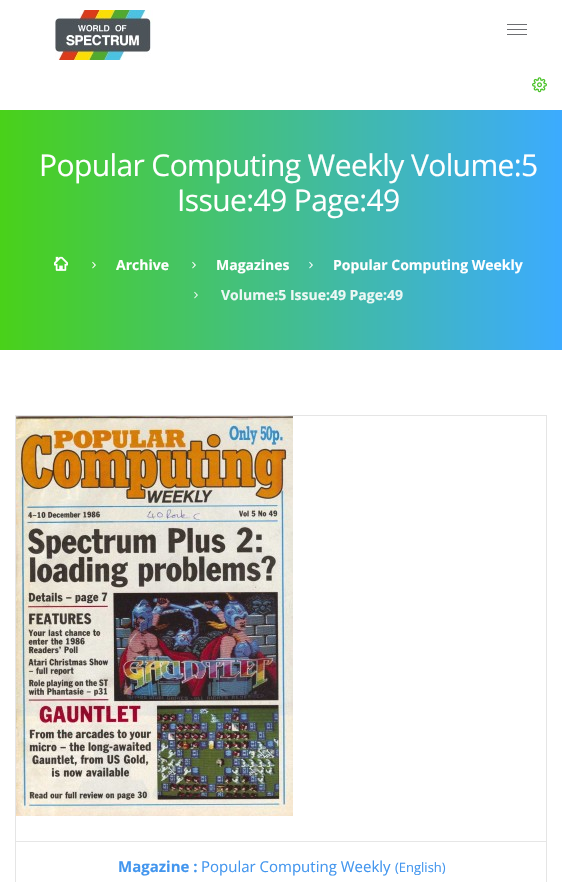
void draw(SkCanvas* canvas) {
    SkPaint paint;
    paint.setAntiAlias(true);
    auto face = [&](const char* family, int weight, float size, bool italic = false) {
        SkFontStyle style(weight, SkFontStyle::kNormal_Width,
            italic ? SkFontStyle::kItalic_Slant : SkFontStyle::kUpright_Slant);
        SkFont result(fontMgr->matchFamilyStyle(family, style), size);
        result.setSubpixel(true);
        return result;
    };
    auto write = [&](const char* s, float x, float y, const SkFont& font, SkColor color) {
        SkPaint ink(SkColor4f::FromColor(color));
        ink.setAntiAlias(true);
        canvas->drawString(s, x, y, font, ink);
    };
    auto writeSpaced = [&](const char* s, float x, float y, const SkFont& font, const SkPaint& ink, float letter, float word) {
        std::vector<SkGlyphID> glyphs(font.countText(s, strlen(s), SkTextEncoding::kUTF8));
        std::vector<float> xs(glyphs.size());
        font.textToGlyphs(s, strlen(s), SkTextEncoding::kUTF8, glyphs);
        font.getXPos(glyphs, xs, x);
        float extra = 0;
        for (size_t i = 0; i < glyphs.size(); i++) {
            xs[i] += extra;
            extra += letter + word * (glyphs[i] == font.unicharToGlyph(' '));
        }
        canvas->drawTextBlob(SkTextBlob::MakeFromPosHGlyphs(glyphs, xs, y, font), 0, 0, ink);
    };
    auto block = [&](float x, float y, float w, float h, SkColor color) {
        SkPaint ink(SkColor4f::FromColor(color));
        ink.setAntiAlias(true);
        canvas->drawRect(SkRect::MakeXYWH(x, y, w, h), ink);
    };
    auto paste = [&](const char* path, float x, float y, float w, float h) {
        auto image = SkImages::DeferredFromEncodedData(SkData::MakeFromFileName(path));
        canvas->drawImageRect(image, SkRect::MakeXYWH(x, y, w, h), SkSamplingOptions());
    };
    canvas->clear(SK_ColorWHITE);
    paste("pic1.png", 55, 10, 98, 50);
    block(507, 29, 20, 1, SkColorSetRGB(109, 110, 113));
    block(507, 24, 20, 1, SkColorSetRGB(109, 110, 113));
    block(507, 34, 20, 1, SkColorSetRGB(109, 110, 113));
    paste("pic2.png", 532, 77, 15, 16);
    {
        const SkColor colors[] = {SkColorSetRGB(73, 209, 25), SkColorSetRGB(60, 171, 255)};
        const float stops[] = {0, 1};
        const SkPoint ends[] = {{0, 230}, {562, 230}};
        paint.setShader(SkGradientShader::MakeLinear(ends, colors, stops, 2, SkTileMode::kClamp));
        paint.setAlpha(255);
    }
    canvas->drawRect(SkRect::MakeXYWH(0, 110, 562, 240), paint);
    auto kFont1 = face("Open Sans", 400, 30);
    paint.setShader(nullptr);
    paint.setColor(SK_ColorWHITE);
    writeSpaced("Popular Computing Weekly Volume:5", 39, 176, kFont1, paint, -0.6f, 0);
    writeSpaced("Issue:49 Page:49", 177, 211, kFont1, paint, -0.6f, 0);
    paste("pic3.png", 54, 256, 14, 15);
    paste("pic4.png", 92, 261, 4, 8);
    auto kFont2 = face("Open Sans", 700, 14);
    write("Archive", 116, 270, kFont2, SK_ColorWHITE);
    paste("pic5.png", 192, 261, 4, 8);
    write("Magazines", 216, 270, kFont2, SK_ColorWHITE);
    paste("pic6.png", 309, 261, 4, 8);
    write("Popular Computing Weekly", 333, 270, kFont2, SK_ColorWHITE);
    paste("pic7.png", 194, 291, 4, 8);
    write("Volume:5 Issue:49 Page:49", 221, 300, kFont2, SkColorSetRGB(236, 248, 245));
    paint.setStyle(SkPaint::kStroke_Style);
    paint.setStrokeWidth(1);
    paint.setColor(SkColorSetRGB(229, 229, 229));
    canvas->drawRect(SkRect::MakeXYWH(15.5f, 415.5f, 531, 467), paint);
    paste("pic8.png", 16, 416, 277, 400);
    block(16, 841, 530, 1, SkColorSetRGB(230, 230, 230));
    auto kFont3 = face("Open Sans", 700, 15);
    write("Magazine :", 118, 872, kFont3, SkColorSetRGB(67, 150, 238));
    auto kFont4 = face("Open Sans", 400, 15);
    write("Popular Computing Weekly", 201, 872, kFont4, SkColorSetRGB(67, 150, 238));
    auto kFont5 = face("Open Sans", 400, 13);
    write("(English)", 395, 872, kFont5, SkColorSetRGB(67, 150, 238));
}
